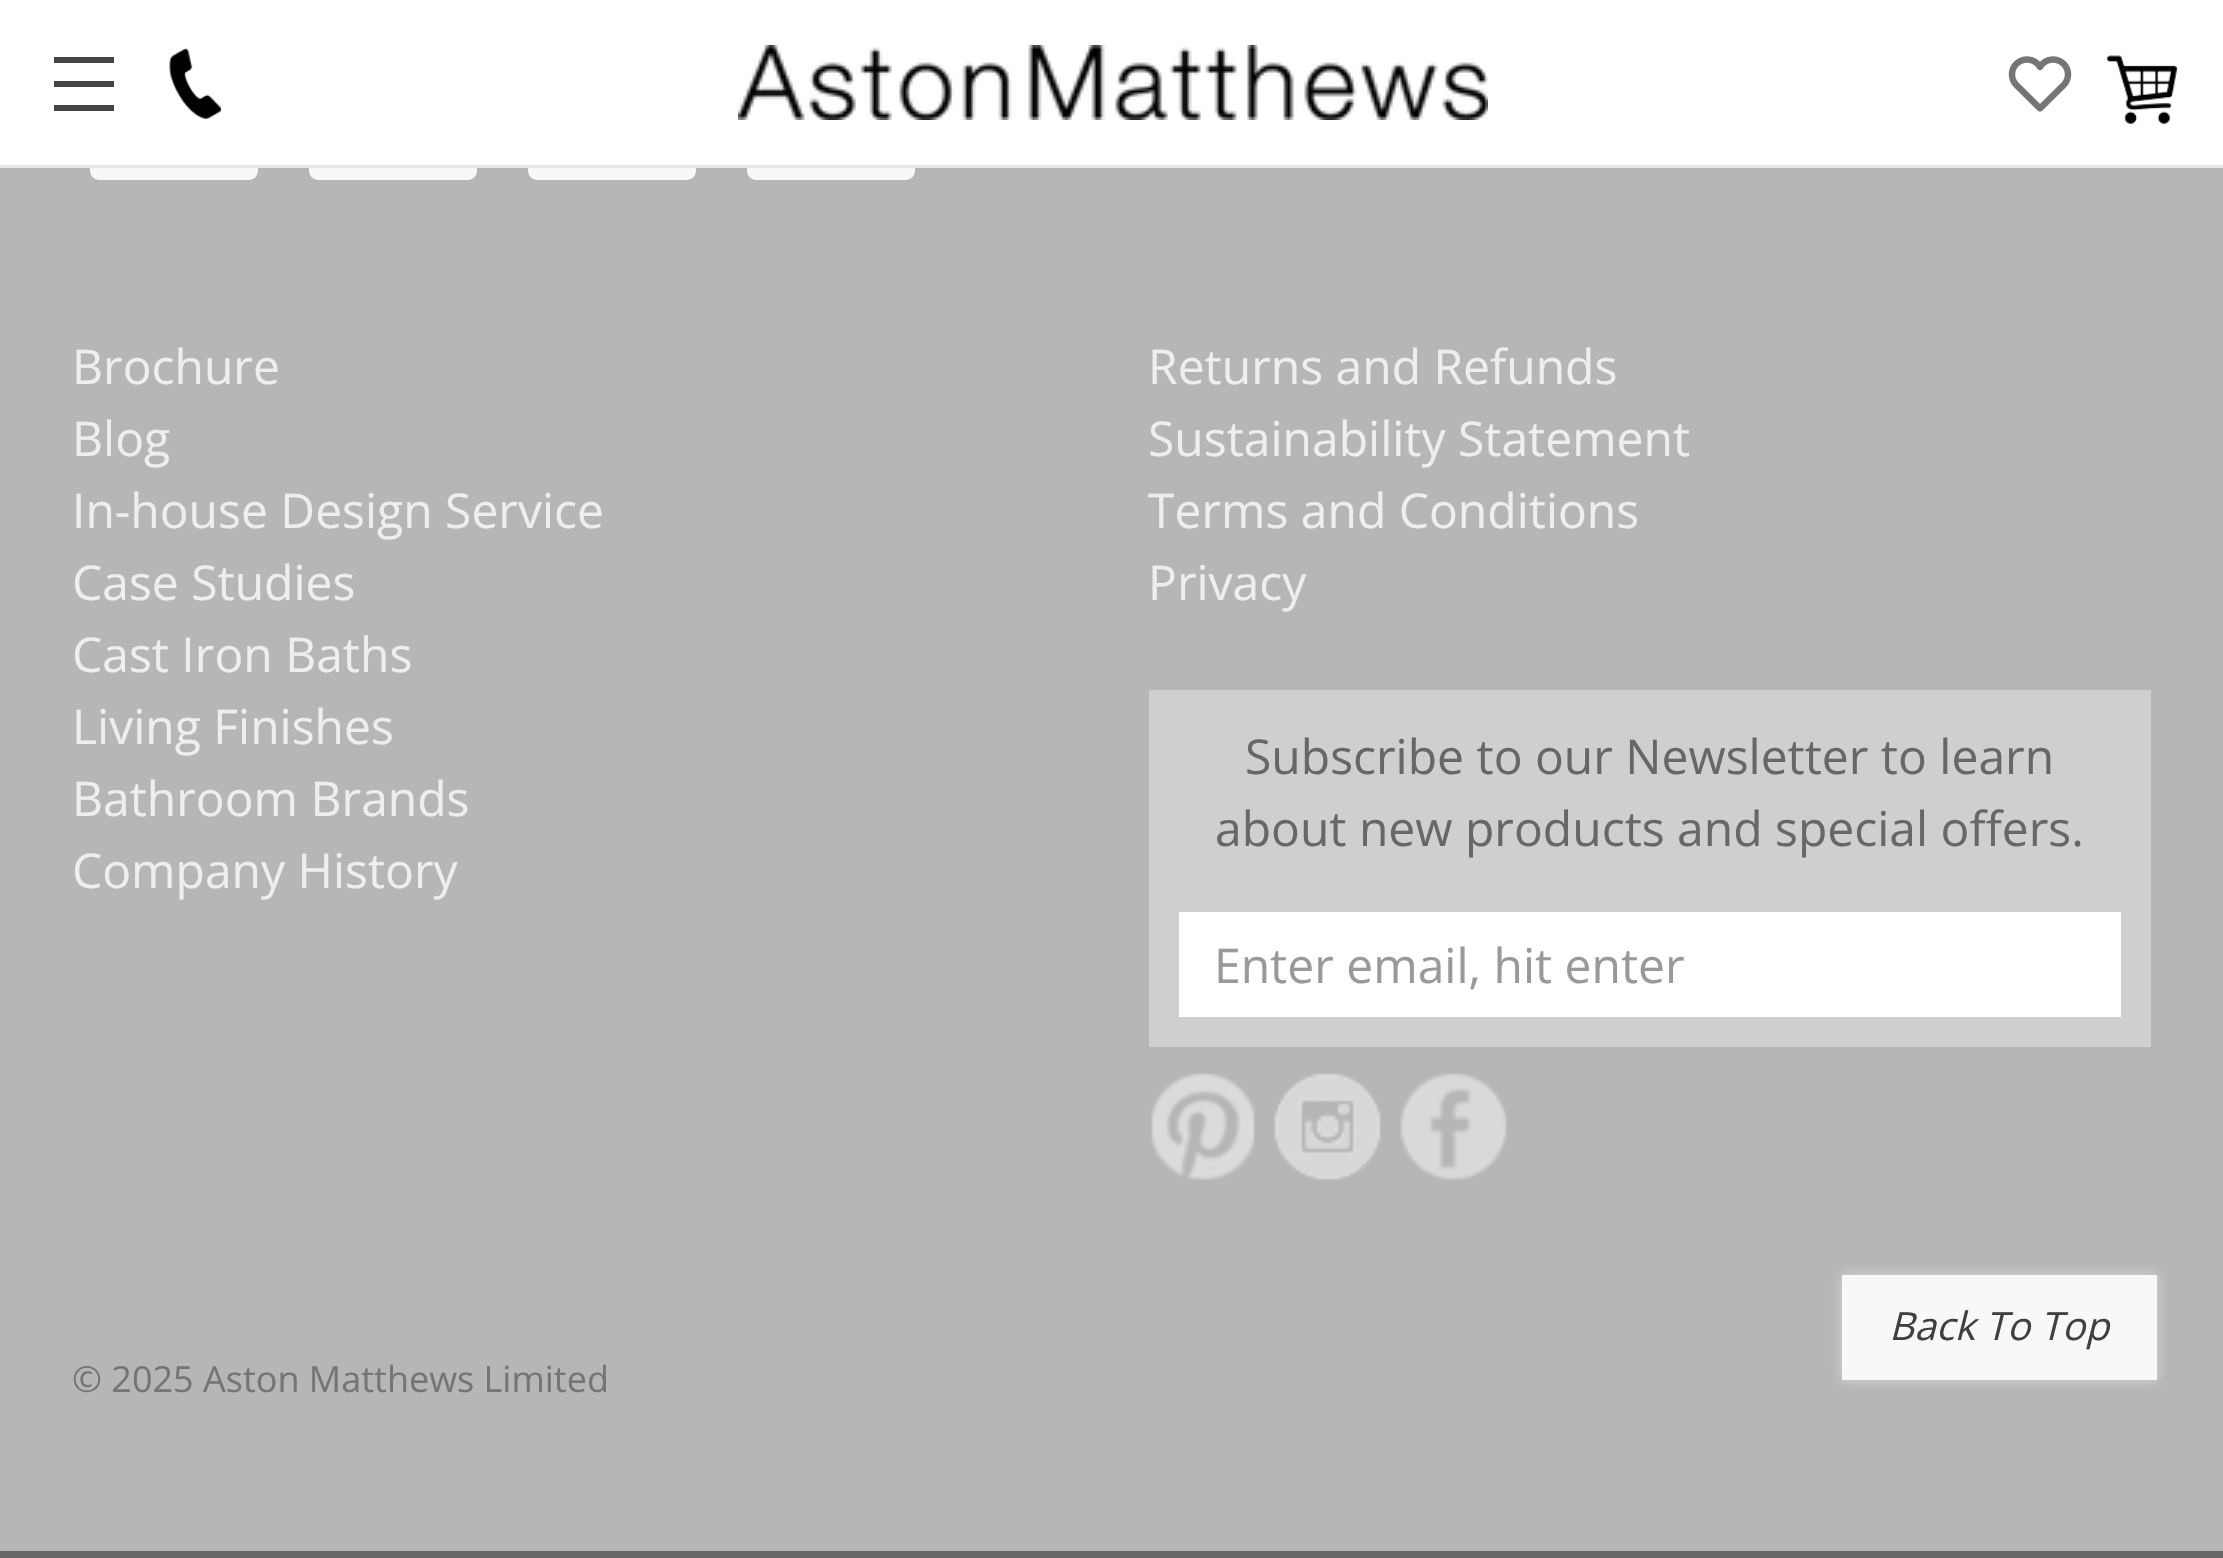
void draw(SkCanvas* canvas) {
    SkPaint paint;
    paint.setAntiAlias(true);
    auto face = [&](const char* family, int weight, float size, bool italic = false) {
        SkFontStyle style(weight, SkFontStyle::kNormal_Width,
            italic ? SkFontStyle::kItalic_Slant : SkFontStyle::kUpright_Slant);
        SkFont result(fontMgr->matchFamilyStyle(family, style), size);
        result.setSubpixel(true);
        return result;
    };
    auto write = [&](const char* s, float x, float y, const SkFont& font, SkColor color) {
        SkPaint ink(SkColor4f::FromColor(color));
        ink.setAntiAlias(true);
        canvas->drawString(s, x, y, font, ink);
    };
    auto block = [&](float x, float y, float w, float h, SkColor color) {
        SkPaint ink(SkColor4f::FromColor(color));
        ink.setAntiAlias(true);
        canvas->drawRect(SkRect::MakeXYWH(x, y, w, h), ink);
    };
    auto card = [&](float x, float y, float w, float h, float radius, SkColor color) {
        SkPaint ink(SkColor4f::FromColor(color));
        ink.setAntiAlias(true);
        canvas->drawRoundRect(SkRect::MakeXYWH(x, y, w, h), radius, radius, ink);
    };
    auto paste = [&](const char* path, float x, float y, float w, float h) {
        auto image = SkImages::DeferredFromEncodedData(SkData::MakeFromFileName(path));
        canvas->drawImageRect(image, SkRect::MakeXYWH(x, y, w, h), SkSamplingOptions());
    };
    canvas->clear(SkColorSetRGB(182, 182, 182));
    card(90, 84, 168, 96, 9, SkColorSetRGB(248, 248, 248));
    card(309, 84, 168, 96, 9, SkColorSetRGB(248, 248, 248));
    card(528, 84, 168, 96, 9, SkColorSetRGB(248, 248, 248));
    card(747, 84, 168, 96, 9, SkColorSetRGB(248, 248, 248));
    block(0, 0, 2223, 165, SK_ColorWHITE);
    block(0, 165, 2223, 3, SkColorSetRGB(229, 229, 229));
    block(54, 81, 60, 6, SkColorSetRGB(68, 68, 68));
    block(54, 57, 60, 6, SkColorSetRGB(68, 68, 68));
    block(54, 105, 60, 6, SkColorSetRGB(68, 68, 68));
    paste("pic1.png", 169, 48, 53, 71);
    paste("pic2.png", 738, 45, 750, 75);
    paste("pic3.png", 2008, 56, 64, 56);
    paste("pic4.png", 2106, 55, 72, 70);
    block(0, 1551, 2223, 7, SkColorSetRGB(103, 103, 103));
    auto kFont1 = face("Open Sans", 400, 48);
    write("Brochure", 72, 384, kFont1, SkColorSetRGB(238, 238, 238));
    write("Blog", 72, 456, kFont1, SkColorSetRGB(238, 238, 238));
    write("In-house Design Service", 72, 528, kFont1, SkColorSetRGB(238, 238, 238));
    write("Case Studies", 72, 600, kFont1, SkColorSetRGB(238, 238, 238));
    write("Cast Iron Baths", 72, 672, kFont1, SkColorSetRGB(238, 238, 238));
    write("Living Finishes", 72, 744, kFont1, SkColorSetRGB(238, 238, 238));
    write("Bathroom Brands", 72, 816, kFont1, SkColorSetRGB(238, 238, 238));
    write("Company History", 72, 888, kFont1, SkColorSetRGB(238, 238, 238));
    write("Returns and Refunds", 1148, 384, kFont1, SkColorSetRGB(238, 238, 238));
    write("Sustainability Statement", 1148, 456, kFont1, SkColorSetRGB(238, 238, 238));
    write("Terms and Conditions", 1148, 528, kFont1, SkColorSetRGB(238, 238, 238));
    write("Privacy", 1148, 600, kFont1, SkColorSetRGB(238, 238, 238));
    block(1149, 690, 1002, 357, SkColorSetRGB(207, 207, 207));
    write("Subscribe to our Newsletter to learn", 1245, 774, kFont1, SkColorSetRGB(103, 103, 103));
    write("about new products and special offers.", 1215, 846, kFont1, SkColorSetRGB(103, 103, 103));
    block(1179, 912, 942, 105, SK_ColorWHITE);
    write("Enter email, hit enter", 1214, 983, kFont1, SkColorSetRGB(153, 153, 153));
    paste("pic5.png", 1151, 1073, 104, 107);
    paste("pic6.png", 1274, 1073, 107, 107);
    paste("pic7.png", 1400, 1073, 107, 107);
    paint.setColor(SkColorSetRGB(217, 217, 217));
    paint.setMaskFilter(SkMaskFilter::MakeBlur(kNormal_SkBlurStyle, 6));
    canvas->drawRect(SkRect::MakeXYWH(1842, 1275, 315, 105), paint);
    paint.setMaskFilter(nullptr);
    block(1842, 1275, 315, 105, SkColorSetRGB(248, 248, 248));
    auto kFont2 = face("Open Sans", 400, 39, true);
    write("Back To Top", 1889, 1340, kFont2, SkColorSetRGB(64, 64, 64));
    auto kFont3 = face("Open Sans", 400, 36);
    write("© 2025 Aston Matthews Limited", 72, 1392, kFont3, SkColorSetRGB(117, 117, 117));
}
